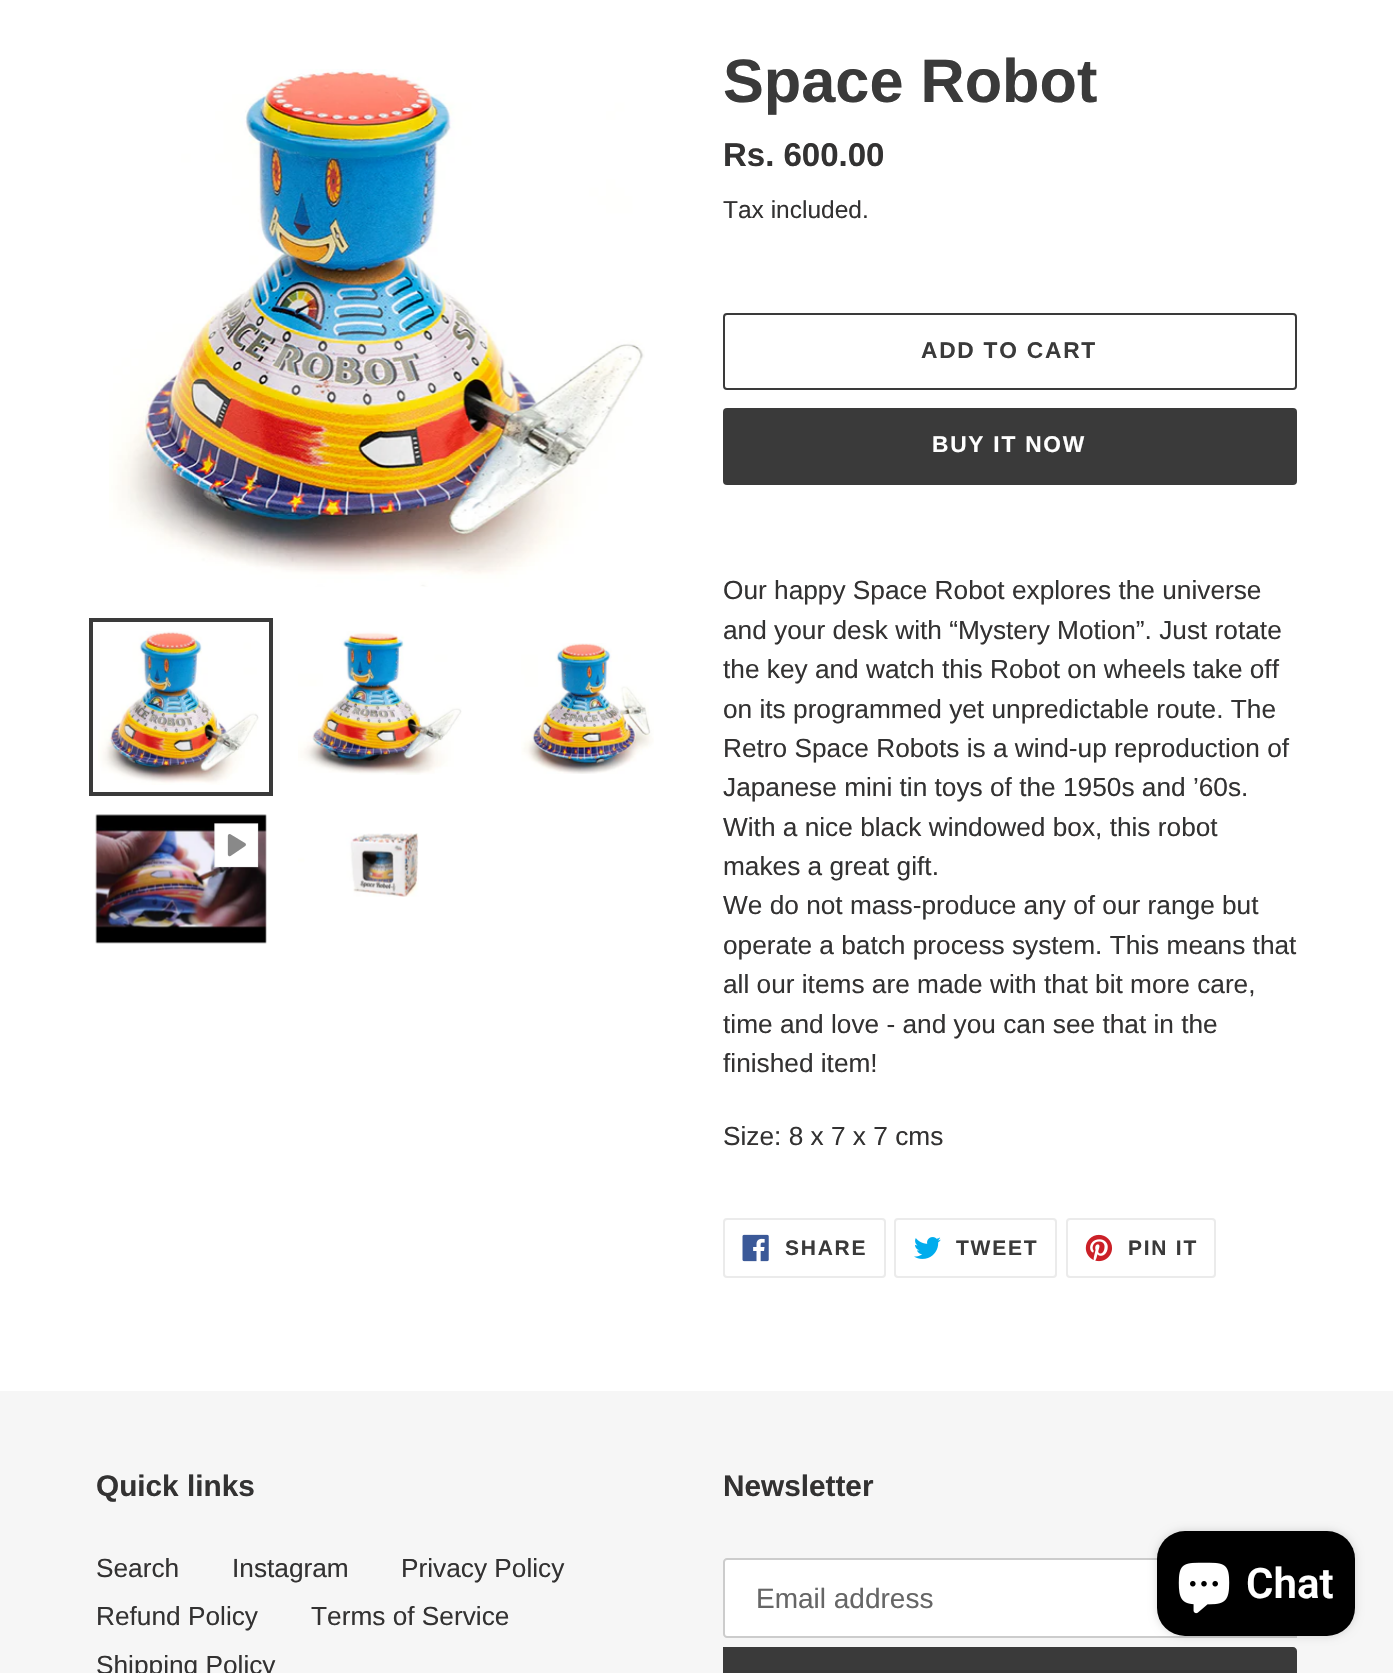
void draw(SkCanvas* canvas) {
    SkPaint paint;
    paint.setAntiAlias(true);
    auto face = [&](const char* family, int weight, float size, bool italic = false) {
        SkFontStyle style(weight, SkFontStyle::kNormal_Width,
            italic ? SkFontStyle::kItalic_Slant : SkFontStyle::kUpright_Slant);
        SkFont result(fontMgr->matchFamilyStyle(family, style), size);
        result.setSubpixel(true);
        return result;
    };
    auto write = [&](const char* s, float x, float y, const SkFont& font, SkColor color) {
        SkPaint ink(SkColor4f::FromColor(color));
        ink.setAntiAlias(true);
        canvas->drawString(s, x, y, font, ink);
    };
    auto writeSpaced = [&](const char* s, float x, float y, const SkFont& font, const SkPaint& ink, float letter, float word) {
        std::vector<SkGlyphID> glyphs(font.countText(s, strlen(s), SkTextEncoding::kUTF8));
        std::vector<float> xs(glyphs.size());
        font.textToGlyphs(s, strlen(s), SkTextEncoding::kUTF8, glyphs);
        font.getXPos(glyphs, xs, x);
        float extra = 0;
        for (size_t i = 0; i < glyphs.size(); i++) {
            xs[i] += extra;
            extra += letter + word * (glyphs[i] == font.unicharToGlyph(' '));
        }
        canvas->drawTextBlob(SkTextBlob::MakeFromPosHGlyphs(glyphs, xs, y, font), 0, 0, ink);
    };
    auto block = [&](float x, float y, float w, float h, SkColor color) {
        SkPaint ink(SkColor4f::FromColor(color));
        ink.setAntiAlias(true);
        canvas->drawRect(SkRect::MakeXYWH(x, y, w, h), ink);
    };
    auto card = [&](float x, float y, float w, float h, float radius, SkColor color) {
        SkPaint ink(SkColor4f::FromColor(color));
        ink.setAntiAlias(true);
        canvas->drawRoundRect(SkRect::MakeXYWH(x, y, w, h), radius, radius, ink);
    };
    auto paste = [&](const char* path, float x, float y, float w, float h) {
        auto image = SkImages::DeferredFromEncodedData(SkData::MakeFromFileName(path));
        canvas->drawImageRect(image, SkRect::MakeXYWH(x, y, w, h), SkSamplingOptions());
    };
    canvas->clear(SK_ColorWHITE);
    paste("pic1.png", 109, 69, 536, 518);
    paint.setStyle(SkPaint::kStroke_Style);
    paint.setStrokeWidth(4);
    paint.setColor(SkColorSetRGB(58, 58, 58));
    canvas->drawRect(SkRect::MakeXYWH(91, 620, 180, 174), paint);
    paste("pic2.png", 98, 631, 161, 154);
    paste("pic3.png", 298, 631, 164, 144);
    paste("pic4.png", 521, 643, 133, 131);
    paste("pic5.png", 95, 814, 172, 130);
    paste("pic6.png", 214, 823, 45, 45);
    paste("pic7.png", 298, 833, 121, 64);
    auto kFont1 = face("Liberation Sans", 700, 61.25f);
    write("Space Robot", 723, 102, kFont1, SkColorSetRGB(58, 58, 58));
    auto kFont2 = face("Liberation Sans", 700, 33);
    write("Rs. 600.00", 723, 166, kFont2, SkColorSetRGB(51, 50, 50));
    auto kFont3 = face("Liberation Sans", 400, 24.5f);
    write("Tax included.", 723, 218, kFont3, SkColorSetRGB(51, 50, 50));
    paint.setStrokeWidth(2);
    canvas->drawRoundRect(SkRect::MakeXYWH(724, 314, 572, 75), 3, 3, paint);
    auto kFont4 = face("Liberation Sans", 700, 22.75f);
    paint.setStyle(SkPaint::kFill_Style);
    writeSpaced("ADD TO CART", 921, 358, kFont4, paint, 1.75f, 0);
    card(723, 408, 574, 77, 4, SkColorSetRGB(58, 58, 58));
    paint.setColor(SK_ColorWHITE);
    writeSpaced("BUY IT NOW", 932, 452, kFont4, paint, 1.75f, 0);
    auto kFont5 = face("Liberation Sans", 400, 26.25f);
    write("Our happy Space Robot explores the universe", 723, 599, kFont5, SkColorSetRGB(51, 50, 50));
    write("and your desk with “Mystery Motion”. Just rotate", 723, 639, kFont5, SkColorSetRGB(51, 50, 50));
    write("the key and watch this Robot on wheels take off", 723, 678, kFont5, SkColorSetRGB(51, 50, 50));
    write("on its programmed yet unpredictable route. The", 723, 718, kFont5, SkColorSetRGB(51, 50, 50));
    write("Retro Space Robots is a wind-up reproduction of", 723, 757, kFont5, SkColorSetRGB(51, 50, 50));
    write("Japanese mini tin toys of the 1950s and ’60s.", 723, 796, kFont5, SkColorSetRGB(51, 50, 50));
    write("With a nice black windowed box, this robot", 723, 836, kFont5, SkColorSetRGB(51, 50, 50));
    write("makes a great gift.", 723, 875, kFont5, SkColorSetRGB(51, 50, 50));
    write("We do not mass-produce any of our range but", 723, 914, kFont5, SkColorSetRGB(51, 50, 50));
    write("operate a batch process system. This means that", 723, 954, kFont5, SkColorSetRGB(51, 50, 50));
    write("all our items are made with that bit more care,", 723, 993, kFont5, SkColorSetRGB(51, 50, 50));
    write("time and love - and you can see that in the", 723, 1033, kFont5, SkColorSetRGB(51, 50, 50));
    write("finished item!", 723, 1072, kFont5, SkColorSetRGB(51, 50, 50));
    write("Size: 8 x 7 x 7 cms", 723, 1145, kFont5, SkColorSetRGB(51, 50, 50));
    paint.setStyle(SkPaint::kStroke_Style);
    paint.setColor(SkColorSetRGB(235, 235, 235));
    canvas->drawRoundRect(SkRect::MakeXYWH(724, 1219, 161, 58), 3, 3, paint);
    paste("pic8.png", 742, 1234, 27, 28);
    auto kFont6 = face("Liberation Sans", 700, 21);
    paint.setStyle(SkPaint::kFill_Style);
    paint.setColor(SkColorSetRGB(58, 58, 58));
    writeSpaced("SHARE", 785, 1255, kFont6, paint, 1.75f, 0);
    paint.setStyle(SkPaint::kStroke_Style);
    paint.setColor(SkColorSetRGB(235, 235, 235));
    canvas->drawRoundRect(SkRect::MakeXYWH(895, 1219, 161, 58), 3, 3, paint);
    paste("pic9.png", 914, 1237, 27, 22);
    paint.setStyle(SkPaint::kFill_Style);
    paint.setColor(SkColorSetRGB(58, 58, 58));
    writeSpaced("TWEET", 956, 1255, kFont6, paint, 1.75f, 0);
    paint.setStyle(SkPaint::kStroke_Style);
    paint.setColor(SkColorSetRGB(235, 235, 235));
    canvas->drawRoundRect(SkRect::MakeXYWH(1067, 1219, 148, 58), 3, 3, paint);
    paste("pic10.png", 1085, 1234, 28, 28);
    paint.setStyle(SkPaint::kFill_Style);
    paint.setColor(SkColorSetRGB(58, 58, 58));
    writeSpaced("PIN IT", 1128, 1255, kFont6, paint, 1.75f, 0);
    block(0, 1391, 1393, 282, SkColorSetRGB(246, 246, 246));
    auto kFont7 = face("Liberation Sans", 700, 29.75f);
    write("Quick links", 96, 1496, kFont7, SkColorSetRGB(51, 50, 50));
    write("Search", 96, 1577, kFont5, SkColorSetRGB(51, 50, 50));
    write("Instagram", 232, 1577, kFont5, SkColorSetRGB(51, 50, 50));
    write("Privacy Policy", 401, 1577, kFont5, SkColorSetRGB(51, 50, 50));
    write("Refund Policy", 96, 1625, kFont5, SkColorSetRGB(51, 50, 50));
    write("Terms of Service", 311, 1625, kFont5, SkColorSetRGB(51, 50, 50));
    write("Shipping Policy", 96, 1674, kFont5, SkColorSetRGB(51, 50, 50));
    write("Newsletter", 723, 1496, kFont7, SkColorSetRGB(51, 50, 50));
    paint.setColor(SK_ColorWHITE);
    canvas->drawPath(SkPathBuilder().moveTo(727, 1559).lineTo(1296, 1559).lineTo(1296, 1637).lineTo(727, 1637).cubicTo(725.5f, 1637, 724, 1635.5f, 724, 1634).lineTo(724, 1562).cubicTo(724, 1560.5f, 725.5f, 1559, 727, 1559).close().detach(), paint);
    paint.setStyle(SkPaint::kStroke_Style);
    paint.setColor(SkColorSetRGB(204, 204, 204));
    canvas->drawPath(SkPathBuilder().moveTo(727, 1559).lineTo(1296, 1559).lineTo(1296, 1637).lineTo(727, 1637).cubicTo(725.5f, 1637, 724, 1635.5f, 724, 1634).lineTo(724, 1562).cubicTo(724, 1560.5f, 725.5f, 1559, 727, 1559).close().detach(), paint);
    auto kFont8 = face("Liberation Sans", 400, 28);
    write("Email address", 756, 1608, kFont8, SkColorSetRGB(102, 102, 102));
    paint.setStyle(SkPaint::kFill_Style);
    paint.setColor(SkColorSetRGB(58, 58, 58));
    canvas->drawPath(SkPathBuilder().moveTo(723, 1647).lineTo(1293, 1647).cubicTo(1295, 1647, 1297, 1649, 1297, 1651).lineTo(1297, 1673).cubicTo(1297, 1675, 1295, 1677, 1293, 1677).lineTo(723, 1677).close().detach(), paint);
    paint.setColor(SkColorSetARGB(38, 0, 0, 0));
    paint.setMaskFilter(SkMaskFilter::MakeBlur(kNormal_SkBlurStyle, 4.5f));
    canvas->drawRoundRect(SkRect::MakeXYWH(1157, 1531, 198, 105), 28, 28, paint);
    paint.setMaskFilter(nullptr);
    card(1157, 1531, 198, 105, 28, SK_ColorBLACK);
    paste("pic11.png", 1178, 1562, 52, 52);
    auto kFont9 = face("Roboto", 600, 42);
    write("Chat", 1246, 1598, kFont9, SK_ColorWHITE);
}
